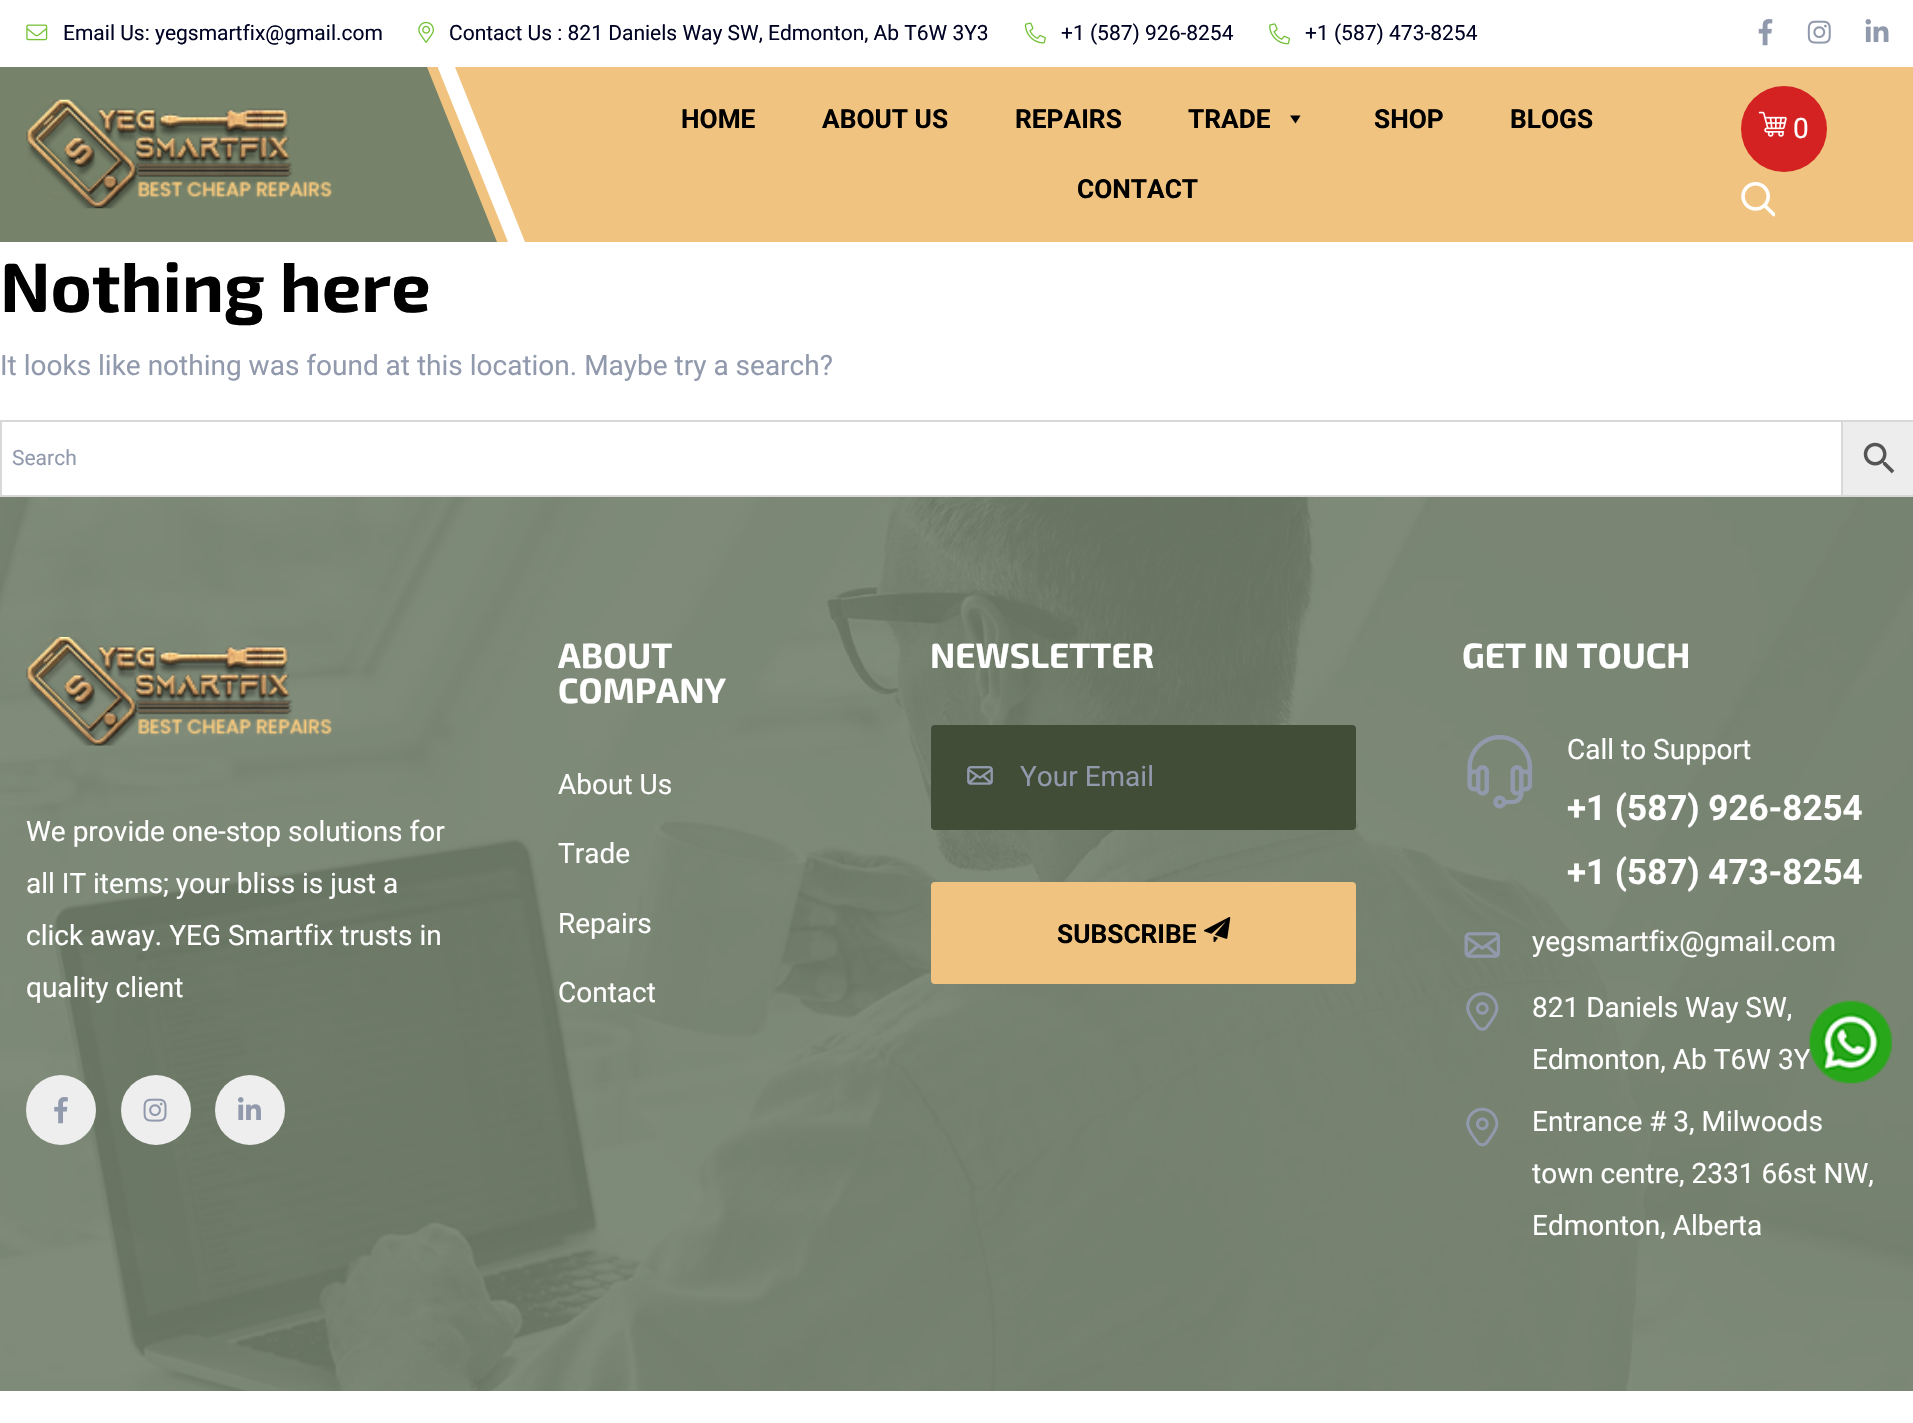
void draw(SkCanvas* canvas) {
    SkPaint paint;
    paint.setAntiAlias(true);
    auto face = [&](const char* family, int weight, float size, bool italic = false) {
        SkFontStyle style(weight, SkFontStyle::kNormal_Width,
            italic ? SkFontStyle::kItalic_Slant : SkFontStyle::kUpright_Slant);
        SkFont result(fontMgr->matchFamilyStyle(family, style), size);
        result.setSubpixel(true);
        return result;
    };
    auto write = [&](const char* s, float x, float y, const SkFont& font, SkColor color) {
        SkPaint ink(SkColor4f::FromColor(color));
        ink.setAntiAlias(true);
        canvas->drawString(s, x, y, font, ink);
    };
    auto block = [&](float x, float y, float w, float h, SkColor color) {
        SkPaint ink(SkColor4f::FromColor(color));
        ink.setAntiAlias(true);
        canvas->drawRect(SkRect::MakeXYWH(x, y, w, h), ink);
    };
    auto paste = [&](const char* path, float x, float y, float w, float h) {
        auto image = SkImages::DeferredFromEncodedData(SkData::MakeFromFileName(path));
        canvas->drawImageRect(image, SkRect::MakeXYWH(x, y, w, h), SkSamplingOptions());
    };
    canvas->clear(SK_ColorWHITE);
    paste("pic1.png", 26, 24, 22, 17);
    auto kFont1 = face("Roboto", 400, 21);
    write("Email Us: yegsmartfix@gmail.com", 63, 40, kFont1, SkColorSetRGB(0, 3, 35));
    paste("pic2.png", 418, 21, 16, 22);
    write("Contact Us : 821 Daniels Way SW, Edmonton, Ab T6W 3Y3", 449, 40, kFont1, SkColorSetRGB(0, 3, 35));
    paste("pic3.png", 1024, 22, 22, 22);
    write("+1 (587) 926-8254", 1061, 40, kFont1, SkColorSetRGB(0, 3, 35));
    paste("pic4.png", 1269, 23, 22, 22);
    write("+1 (587) 473-8254", 1305, 40, kFont1, SkColorSetRGB(0, 3, 35));
    paste("pic5.png", 1758, 19, 15, 27);
    paste("pic6.png", 1807, 20, 24, 24);
    paste("pic7.png", 1865, 19, 24, 23);
    block(427, 67, 1486, 175, SkColorSetRGB(240, 196, 128));
    paint.setColor(SkColorSetRGB(118, 130, 106));
    canvas->drawPath(SkPathBuilder().moveTo(0, 67).lineTo(0, 242).lineTo(497, 242).lineTo(427, 67).close().detach(), paint);
    paste("pic8.png", 26, 99, 307, 110);
    paint.setColor(SK_ColorWHITE);
    canvas->drawPath(SkPathBuilder().moveTo(438, 67).lineTo(455, 67).lineTo(525, 242).lineTo(508, 242).lineTo(438, 68).close().detach(), paint);
    auto kFont2 = face("Roboto", 700, 26.25f);
    write("HOME", 681, 128, kFont2, SK_ColorBLACK);
    write("ABOUT US", 822, 128, kFont2, SK_ColorBLACK);
    write("REPAIRS", 1015, 128, kFont2, SK_ColorBLACK);
    write("TRADE", 1188, 128, kFont2, SK_ColorBLACK);
    paint.setColor(SK_ColorBLACK);
    canvas->drawPath(SkPathBuilder().moveTo(1300.5f, 115.5f).lineTo(1295.5f, 123.5f).lineTo(1290, 115.5f).close().detach(), paint);
    write("SHOP", 1374, 128, kFont2, SK_ColorBLACK);
    write("BLOGS", 1510, 128, kFont2, SK_ColorBLACK);
    write("CONTACT", 1077, 198, kFont2, SK_ColorBLACK);
    paint.setColor(SkColorSetRGB(212, 34, 34));
    canvas->drawCircle(1784, 129, 43, paint);
    paste("pic9.png", 1758, 111, 29, 26);
    auto kFont3 = face("Roboto", 400, 28);
    write("0", 1793, 138, kFont3, SK_ColorWHITE);
    paste("pic10.png", 1741, 182, 34, 35);
    auto kFont4 = face("Exo 2", 700, 70);
    write("Nothing here", 0, 312, kFont4, SK_ColorBLACK);
    write("It looks like nothing was found at this location. Maybe try a search?", 0, 375, kFont3, SkColorSetRGB(145, 153, 172));
    paint.setColor(SkColorSetRGB(237, 237, 237));
    canvas->drawRect(SkRect::MakeXYWH(1842, 421, 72, 75), paint);
    paint.setStyle(SkPaint::kStroke_Style);
    paint.setStrokeWidth(2);
    paint.setColor(SkColorSetRGB(216, 216, 216));
    canvas->drawRect(SkRect::MakeXYWH(1842, 421, 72, 75), paint);
    canvas->drawRect(SkRect::MakeXYWH(1, 421, 1841, 75), paint);
    write("Search", 12, 465, kFont1, SkColorSetRGB(145, 153, 172));
    paste("pic11.png", 1863, 442, 32, 32);
    paste("pic12.png", 0, 497, 1913, 894);
    paste("pic13.png", 26, 637, 307, 109);
    write("We provide one-stop solutions for", 26, 841, kFont3, SK_ColorWHITE);
    write("all IT items; your bliss is just a", 26, 893, kFont3, SK_ColorWHITE);
    write("click away. YEG Smartfix trusts in", 26, 945, kFont3, SK_ColorWHITE);
    write("quality client", 26, 997, kFont3, SK_ColorWHITE);
    paint.setStyle(SkPaint::kFill_Style);
    paint.setColor(SkColorSetRGB(238, 238, 238));
    canvas->drawCircle(61, 1110, 35, paint);
    paste("pic14.png", 54, 1097, 14, 27);
    canvas->drawCircle(156, 1110, 35, paint);
    paste("pic15.png", 143, 1098, 24, 24);
    canvas->drawCircle(250, 1110, 35, paint);
    paste("pic16.png", 238, 1097, 23, 23);
    auto kFont5 = face("Exo 2", 700, 35);
    write("ABOUT", 558, 668, kFont5, SK_ColorWHITE);
    write("COMPANY", 558, 703, kFont5, SK_ColorWHITE);
    write("About Us", 558, 794, kFont3, SK_ColorWHITE);
    write("Trade", 558, 863, kFont3, SK_ColorWHITE);
    write("Repairs", 558, 933, kFont3, SK_ColorWHITE);
    write("Contact", 558, 1002, kFont3, SK_ColorWHITE);
    write("NEWSLETTER", 930, 668, kFont5, SK_ColorWHITE);
    paint.setColor(SkColorSetRGB(65, 77, 55));
    canvas->drawRoundRect(SkRect::MakeXYWH(932, 726, 423, 103), 3, 3, paint);
    paint.setStyle(SkPaint::kStroke_Style);
    canvas->drawRoundRect(SkRect::MakeXYWH(932, 726, 423, 103), 3, 3, paint);
    paste("pic17.png", 967, 766, 26, 19);
    write("Your Email", 1020, 786, kFont3, SkColorSetRGB(145, 153, 172));
    paint.setStyle(SkPaint::kFill_Style);
    paint.setColor(SkColorSetRGB(240, 196, 128));
    canvas->drawRoundRect(SkRect::MakeXYWH(932, 883, 423, 100), 3, 3, paint);
    paint.setStyle(SkPaint::kStroke_Style);
    canvas->drawRoundRect(SkRect::MakeXYWH(932, 883, 423, 100), 3, 3, paint);
    write("SUBSCRIBE", 1057, 943, kFont2, SK_ColorBLACK);
    paste("pic18.png", 1204, 917, 27, 26);
    write("GET IN TOUCH", 1462, 668, kFont5, SK_ColorWHITE);
    paste("pic19.png", 1467, 735, 66, 74);
    write("Call to Support", 1567, 759, kFont3, SK_ColorWHITE);
    auto kFont6 = face("Roboto", 700, 35);
    write("+1 (587) 926-8254", 1567, 820, kFont6, SK_ColorWHITE);
    write("+1 (587) 473-8254", 1567, 884, kFont6, SK_ColorWHITE);
    paste("pic20.png", 1464, 932, 36, 26);
    write("yegsmartfix@gmail.com", 1532, 951, kFont3, SK_ColorWHITE);
    paste("pic21.png", 1466, 992, 33, 39);
    write("821 Daniels Way SW,", 1532, 1017, kFont3, SK_ColorWHITE);
    write("Edmonton, Ab T6W 3Y", 1532, 1069, kFont3, SK_ColorWHITE);
    paste("pic22.png", 1466, 1107, 33, 40);
    write("Entrance # 3, Milwoods", 1532, 1131, kFont3, SK_ColorWHITE);
    write("town centre, 2331 66st NW,", 1532, 1183, kFont3, SK_ColorWHITE);
    write("Edmonton, Alberta", 1532, 1235, kFont3, SK_ColorWHITE);
    paste("pic23.png", 1809, 1000, 83, 84);
}
